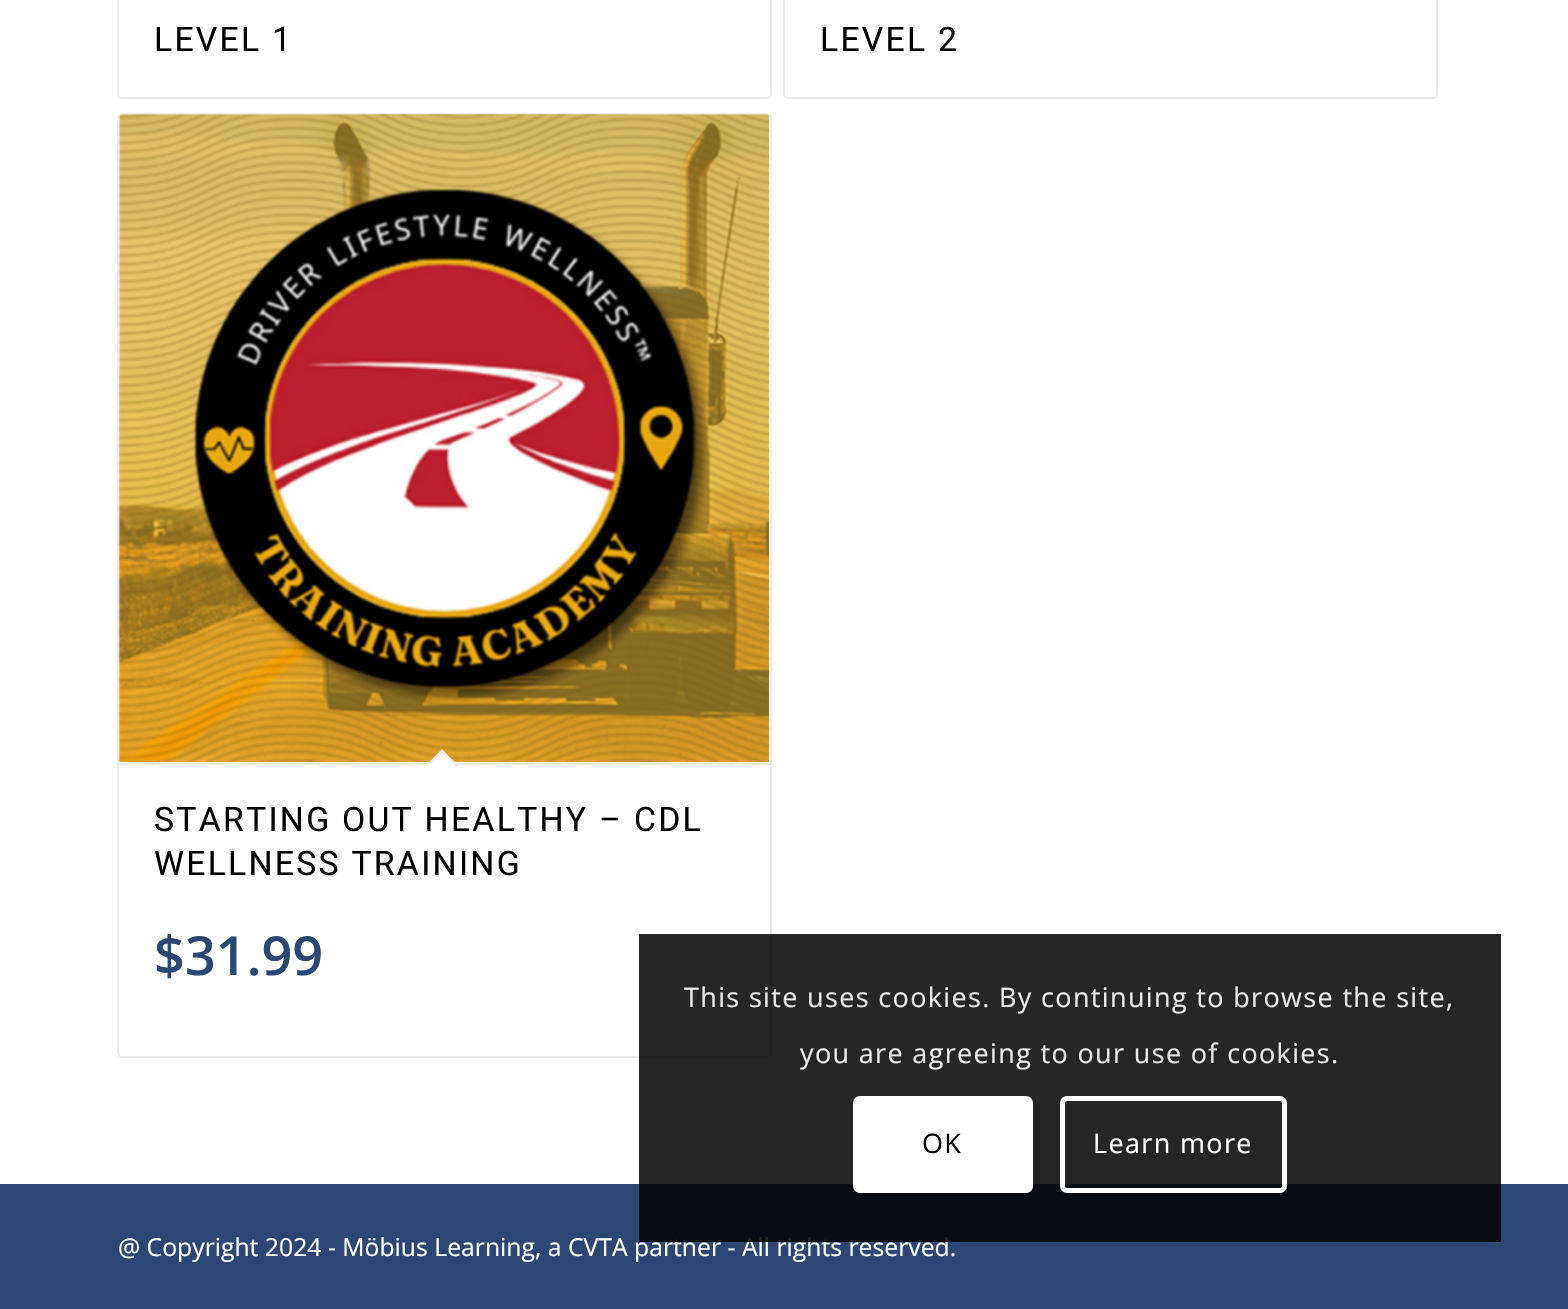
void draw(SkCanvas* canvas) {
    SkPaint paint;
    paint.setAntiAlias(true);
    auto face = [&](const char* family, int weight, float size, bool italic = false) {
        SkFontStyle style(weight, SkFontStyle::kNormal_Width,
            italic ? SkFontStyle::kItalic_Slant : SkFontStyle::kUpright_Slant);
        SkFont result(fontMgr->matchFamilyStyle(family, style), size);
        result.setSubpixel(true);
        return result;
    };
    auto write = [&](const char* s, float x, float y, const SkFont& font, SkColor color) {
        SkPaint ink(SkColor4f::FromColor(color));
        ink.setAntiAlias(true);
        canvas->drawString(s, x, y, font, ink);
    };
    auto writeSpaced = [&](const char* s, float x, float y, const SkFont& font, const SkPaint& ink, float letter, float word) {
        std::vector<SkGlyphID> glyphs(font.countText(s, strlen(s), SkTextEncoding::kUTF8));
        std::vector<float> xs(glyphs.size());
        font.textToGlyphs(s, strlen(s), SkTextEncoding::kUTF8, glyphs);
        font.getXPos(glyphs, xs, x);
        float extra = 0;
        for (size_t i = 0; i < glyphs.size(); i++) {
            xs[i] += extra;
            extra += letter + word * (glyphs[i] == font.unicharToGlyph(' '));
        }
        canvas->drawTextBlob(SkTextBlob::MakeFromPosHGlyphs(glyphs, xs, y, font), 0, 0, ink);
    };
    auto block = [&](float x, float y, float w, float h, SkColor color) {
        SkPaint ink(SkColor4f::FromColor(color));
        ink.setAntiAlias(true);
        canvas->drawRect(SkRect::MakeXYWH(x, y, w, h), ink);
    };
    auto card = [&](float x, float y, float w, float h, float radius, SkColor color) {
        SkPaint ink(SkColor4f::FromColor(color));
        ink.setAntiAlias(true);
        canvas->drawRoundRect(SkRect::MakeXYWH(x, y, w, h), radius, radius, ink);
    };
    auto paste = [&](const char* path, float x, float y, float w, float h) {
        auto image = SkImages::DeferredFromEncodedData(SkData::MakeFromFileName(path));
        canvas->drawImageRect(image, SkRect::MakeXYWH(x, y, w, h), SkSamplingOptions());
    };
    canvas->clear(SK_ColorWHITE);
    paint.setStyle(SkPaint::kStroke_Style);
    paint.setStrokeWidth(2);
    paint.setColor(SkColorSetRGB(235, 235, 235));
    canvas->drawRoundRect(SkRect::MakeXYWH(118, -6, 653, 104), 4, 4, paint);
    paint.setStyle(SkPaint::kFill_Style);
    paint.setColor(SK_ColorWHITE);
    canvas->drawPath(SkPathBuilder().moveTo(119, -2).lineTo(770, -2).lineTo(770, 95).cubicTo(770, 96, 769, 97, 768, 97).lineTo(121, 97).cubicTo(120, 97, 119, 96, 119, 95).close().detach(), paint);
    auto kFont1 = face("Roboto", 400, 33.75f);
    paint.setColor(SK_ColorBLACK);
    writeSpaced("LEVEL 1", 154, 51, kFont1, paint, 2.25f, 0);
    paint.setStyle(SkPaint::kStroke_Style);
    paint.setColor(SkColorSetRGB(235, 235, 235));
    canvas->drawRoundRect(SkRect::MakeXYWH(784, -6, 653, 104), 4, 4, paint);
    paint.setStyle(SkPaint::kFill_Style);
    paint.setColor(SK_ColorWHITE);
    canvas->drawPath(SkPathBuilder().moveTo(785, -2).lineTo(1436, -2).lineTo(1436, 95).cubicTo(1436, 96, 1435, 97, 1434, 97).lineTo(787, 97).cubicTo(786, 97, 785, 96, 785, 95).close().detach(), paint);
    paint.setColor(SK_ColorBLACK);
    writeSpaced("LEVEL 2", 820, 51, kFont1, paint, 2.25f, 0);
    paint.setStyle(SkPaint::kStroke_Style);
    paint.setColor(SkColorSetRGB(235, 235, 235));
    canvas->drawRoundRect(SkRect::MakeXYWH(118, 114, 653, 943), 4, 4, paint);
    paste("pic1.png", 119, 114, 651, 648);
    paint.setStyle(SkPaint::kFill_Style);
    paint.setColor(SK_ColorWHITE);
    canvas->drawPath(SkPathBuilder().moveTo(119, 763).lineTo(770, 763).lineTo(770, 1053).cubicTo(770, 1054, 769, 1055, 768, 1055).lineTo(121, 1055).cubicTo(120, 1055, 119, 1054, 119, 1053).close().detach(), paint);
    block(119, 763, 651, 2, SkColorSetRGB(235, 235, 235));
    canvas->drawPath(SkPathBuilder().moveTo(442, 749.5f).lineTo(458, 765.5f).lineTo(442, 781.5f).lineTo(426, 765.5f).close().detach(), paint);
    paint.setColor(SkColorSetRGB(235, 235, 235));
    canvas->drawPath(SkPathBuilder().moveTo(442, 749.5f).lineTo(458, 765.5f).lineTo(456.5f, 767).lineTo(440.5f, 751).close().detach(), paint);
    canvas->drawPath(SkPathBuilder().moveTo(442, 749.5f).lineTo(443.5f, 751).lineTo(427.5f, 767).lineTo(426, 765.5f).close().detach(), paint);
    paint.setColor(SK_ColorBLACK);
    writeSpaced("STARTING OUT HEALTHY – CDL", 154, 831, kFont1, paint, 2.25f, 0);
    writeSpaced("WELLNESS TRAINING", 154, 875, kFont1, paint, 2.25f, 0);
    auto kFont2 = face("Open Sans", 600, 54);
    write("$31.99", 154, 975, kFont2, SkColorSetRGB(44, 71, 117));
    block(0, 1184, 1568, 125, SkColorSetRGB(44, 71, 117));
    auto kFont3 = face("Open Sans", 400, 24.75f);
    write("@ Copyright 2024 - Möbius Learning, a CVTA partner - All rights reserved.", 118, 1256, kFont3, SK_ColorWHITE);
    block(639, 934, 862, 308, SkColorSetARGB(217, 0, 0, 0));
    auto kFont4 = face("Open Sans", 400, 27);
    paint.setColor(SkColorSetRGB(233, 233, 233));
    writeSpaced("This site uses cookies. By continuing to browse the site,", 684, 1007, kFont4, paint, 1.35f, 0);
    writeSpaced("you are agreeing to our use of cookies.", 800, 1063, kFont4, paint, 1.35f, 0);
    card(853, 1096, 180, 97, 7, SK_ColorWHITE);
    paint.setColor(SK_ColorBLACK);
    writeSpaced("OK", 922, 1153, kFont4, paint, 1.35f, 0);
    paint.setStyle(SkPaint::kStroke_Style);
    paint.setStrokeWidth(5);
    paint.setColor(SK_ColorWHITE);
    canvas->drawRoundRect(SkRect::MakeXYWH(1062.5f, 1098.5f, 222, 92), 4.5f, 4.5f, paint);
    paint.setStyle(SkPaint::kFill_Style);
    writeSpaced("Learn more", 1093, 1153, kFont4, paint, 1.35f, 0);
}
